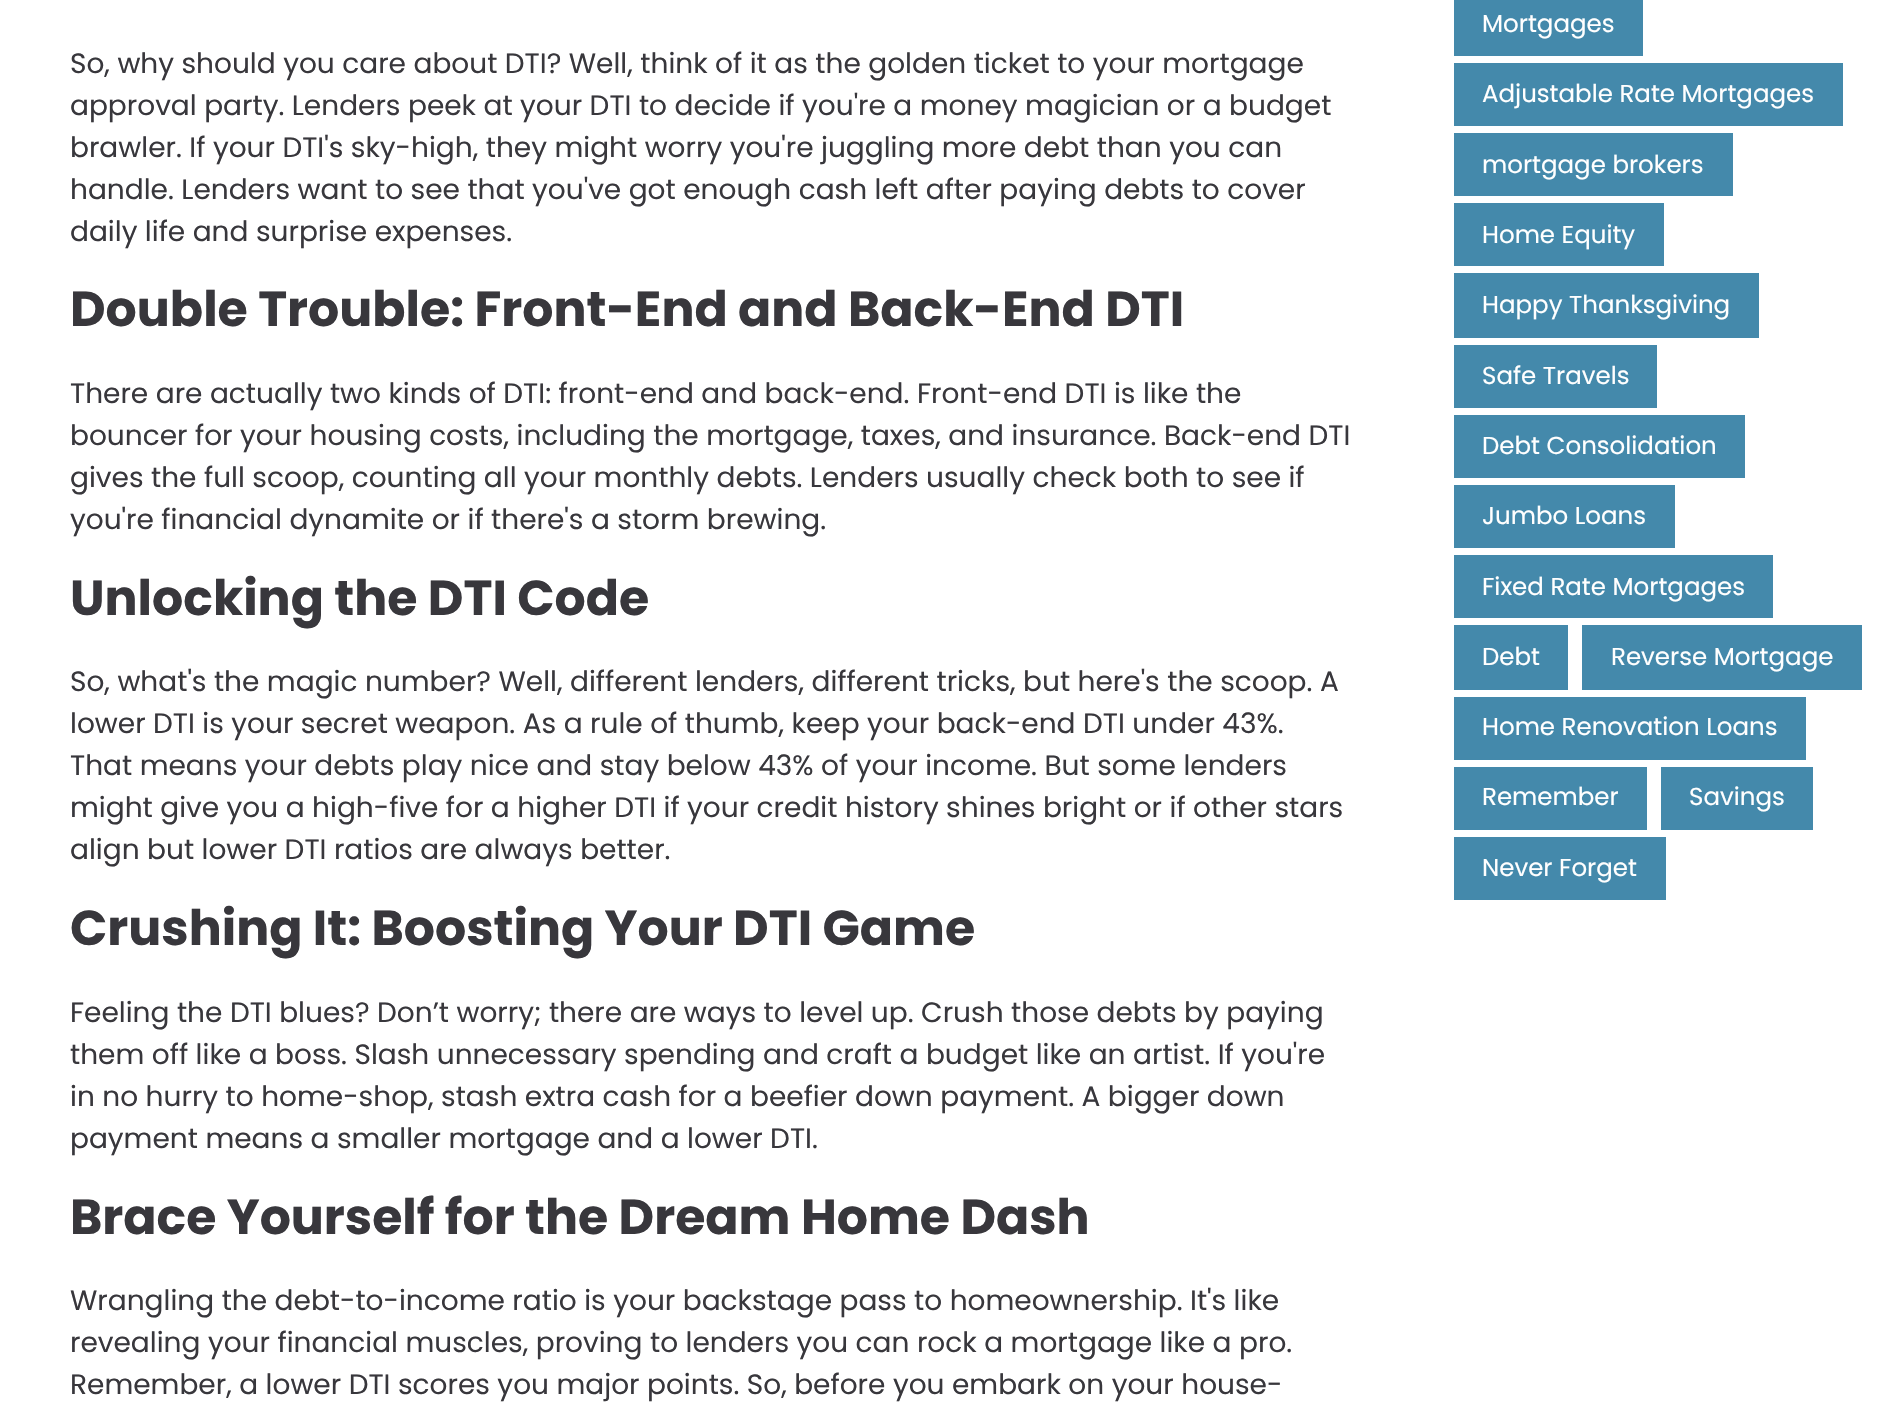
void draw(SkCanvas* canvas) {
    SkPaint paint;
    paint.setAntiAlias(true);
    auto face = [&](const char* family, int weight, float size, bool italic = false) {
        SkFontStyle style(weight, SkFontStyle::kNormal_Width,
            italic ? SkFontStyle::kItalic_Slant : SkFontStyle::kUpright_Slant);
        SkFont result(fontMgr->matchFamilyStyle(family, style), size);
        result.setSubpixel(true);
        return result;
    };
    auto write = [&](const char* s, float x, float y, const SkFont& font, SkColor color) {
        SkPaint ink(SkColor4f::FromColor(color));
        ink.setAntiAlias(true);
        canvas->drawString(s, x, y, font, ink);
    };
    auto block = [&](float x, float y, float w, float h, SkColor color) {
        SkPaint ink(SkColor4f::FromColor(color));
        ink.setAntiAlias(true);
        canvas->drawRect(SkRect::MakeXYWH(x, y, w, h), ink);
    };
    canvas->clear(SK_ColorWHITE);
    auto kFont1 = face("Poppins", 400, 28);
    write("So, why should you care about DTI? Well, think of it as the golden ticket to your mortgage", 70, 73, kFont1, SkColorSetRGB(56, 55, 60));
    write("approval party. Lenders peek at your DTI to decide if you're a money magician or a budget", 70, 115, kFont1, SkColorSetRGB(56, 55, 60));
    write("brawler. If your DTI's sky-high, they might worry you're juggling more debt than you can", 70, 157, kFont1, SkColorSetRGB(56, 55, 60));
    write("handle. Lenders want to see that you've got enough cash left after paying debts to cover", 70, 199, kFont1, SkColorSetRGB(56, 55, 60));
    write("daily life and surprise expenses.", 70, 241, kFont1, SkColorSetRGB(56, 55, 60));
    auto kFont2 = face("Poppins", 700, 49);
    write("Double Trouble: Front-End and Back-End DTI", 70, 326, kFont2, SkColorSetRGB(56, 55, 60));
    write("There are actually two kinds of DTI: front-end and back-end. Front-end DTI is like the", 70, 403, kFont1, SkColorSetRGB(56, 55, 60));
    write("bouncer for your housing costs, including the mortgage, taxes, and insurance. Back-end DTI", 70, 445, kFont1, SkColorSetRGB(56, 55, 60));
    write("gives the full scoop, counting all your monthly debts. Lenders usually check both to see if", 70, 487, kFont1, SkColorSetRGB(56, 55, 60));
    write("you're financial dynamite or if there's a storm brewing.", 70, 529, kFont1, SkColorSetRGB(56, 55, 60));
    write("Unlocking the DTI Code", 70, 615, kFont2, SkColorSetRGB(56, 55, 60));
    write("So, what's the magic number? Well, different lenders, different tricks, but here's the scoop. A", 70, 691, kFont1, SkColorSetRGB(56, 55, 60));
    write("lower DTI is your secret weapon. As a rule of thumb, keep your back-end DTI under 43%.", 70, 733, kFont1, SkColorSetRGB(56, 55, 60));
    write("That means your debts play nice and stay below 43% of your income. But some lenders", 70, 775, kFont1, SkColorSetRGB(56, 55, 60));
    write("might give you a high-five for a higher DTI if your credit history shines bright or if other stars", 70, 817, kFont1, SkColorSetRGB(56, 55, 60));
    write("align but lower DTI ratios are always better.", 70, 859, kFont1, SkColorSetRGB(56, 55, 60));
    write("Crushing It: Boosting Your DTI Game", 70, 945, kFont2, SkColorSetRGB(56, 55, 60));
    write("Feeling the DTI blues? Don’t worry; there are ways to level up. Crush those debts by paying", 70, 1022, kFont1, SkColorSetRGB(56, 55, 60));
    write("them off like a boss. Slash unnecessary spending and craft a budget like an artist. If you're", 70, 1064, kFont1, SkColorSetRGB(56, 55, 60));
    write("in no hurry to home-shop, stash extra cash for a beefier down payment. A bigger down", 70, 1106, kFont1, SkColorSetRGB(56, 55, 60));
    write("payment means a smaller mortgage and a lower DTI.", 70, 1148, kFont1, SkColorSetRGB(56, 55, 60));
    write("Brace Yourself for the Dream Home Dash", 70, 1234, kFont2, SkColorSetRGB(56, 55, 60));
    write("Wrangling the debt-to-income ratio is your backstage pass to homeownership. It's like", 70, 1310, kFont1, SkColorSetRGB(56, 55, 60));
    write("revealing your financial muscles, proving to lenders you can rock a mortgage like a pro.", 70, 1352, kFont1, SkColorSetRGB(56, 55, 60));
    write("Remember, a lower DTI scores you major points. So, before you embark on your house-", 70, 1394, kFont1, SkColorSetRGB(56, 55, 60));
    block(1454, 0, 189, 56, SkColorSetRGB(68, 137, 171));
    auto kFont3 = face("Poppins", 400, 24.5f);
    write("Mortgages", 1482, 32, kFont3, SK_ColorWHITE);
    block(1454, 63, 389, 63, SkColorSetRGB(68, 137, 171));
    write("Adjustable Rate Mortgages", 1482, 102, kFont3, SK_ColorWHITE);
    block(1454, 133, 279, 63, SkColorSetRGB(68, 137, 171));
    write("mortgage brokers", 1482, 173, kFont3, SK_ColorWHITE);
    block(1454, 203, 210, 63, SkColorSetRGB(68, 137, 171));
    write("Home Equity", 1482, 243, kFont3, SK_ColorWHITE);
    block(1454, 273, 305, 65, SkColorSetRGB(68, 137, 171));
    write("Happy Thanksgiving", 1482, 313, kFont3, SK_ColorWHITE);
    block(1454, 345, 203, 63, SkColorSetRGB(68, 137, 171));
    write("Safe Travels", 1482, 384, kFont3, SK_ColorWHITE);
    block(1454, 415, 291, 63, SkColorSetRGB(68, 137, 171));
    write("Debt Consolidation", 1482, 454, kFont3, SK_ColorWHITE);
    block(1454, 485, 221, 63, SkColorSetRGB(68, 137, 171));
    write("Jumbo Loans", 1482, 524, kFont3, SK_ColorWHITE);
    block(1454, 555, 319, 63, SkColorSetRGB(68, 137, 171));
    write("Fixed Rate Mortgages", 1482, 595, kFont3, SK_ColorWHITE);
    block(1454, 625, 114, 65, SkColorSetRGB(68, 137, 171));
    write("Debt", 1482, 665, kFont3, SK_ColorWHITE);
    block(1582, 625, 280, 65, SkColorSetRGB(68, 137, 171));
    write("Reverse Mortgage", 1611, 665, kFont3, SK_ColorWHITE);
    block(1454, 697, 352, 63, SkColorSetRGB(68, 137, 171));
    write("Home Renovation Loans", 1482, 735, kFont3, SK_ColorWHITE);
    block(1454, 767, 193, 63, SkColorSetRGB(68, 137, 171));
    write("Remember", 1482, 805, kFont3, SK_ColorWHITE);
    block(1661, 767, 152, 63, SkColorSetRGB(68, 137, 171));
    write("Savings", 1689, 805, kFont3, SK_ColorWHITE);
    block(1454, 837, 212, 63, SkColorSetRGB(68, 137, 171));
    write("Never Forget", 1482, 876, kFont3, SK_ColorWHITE);
}
